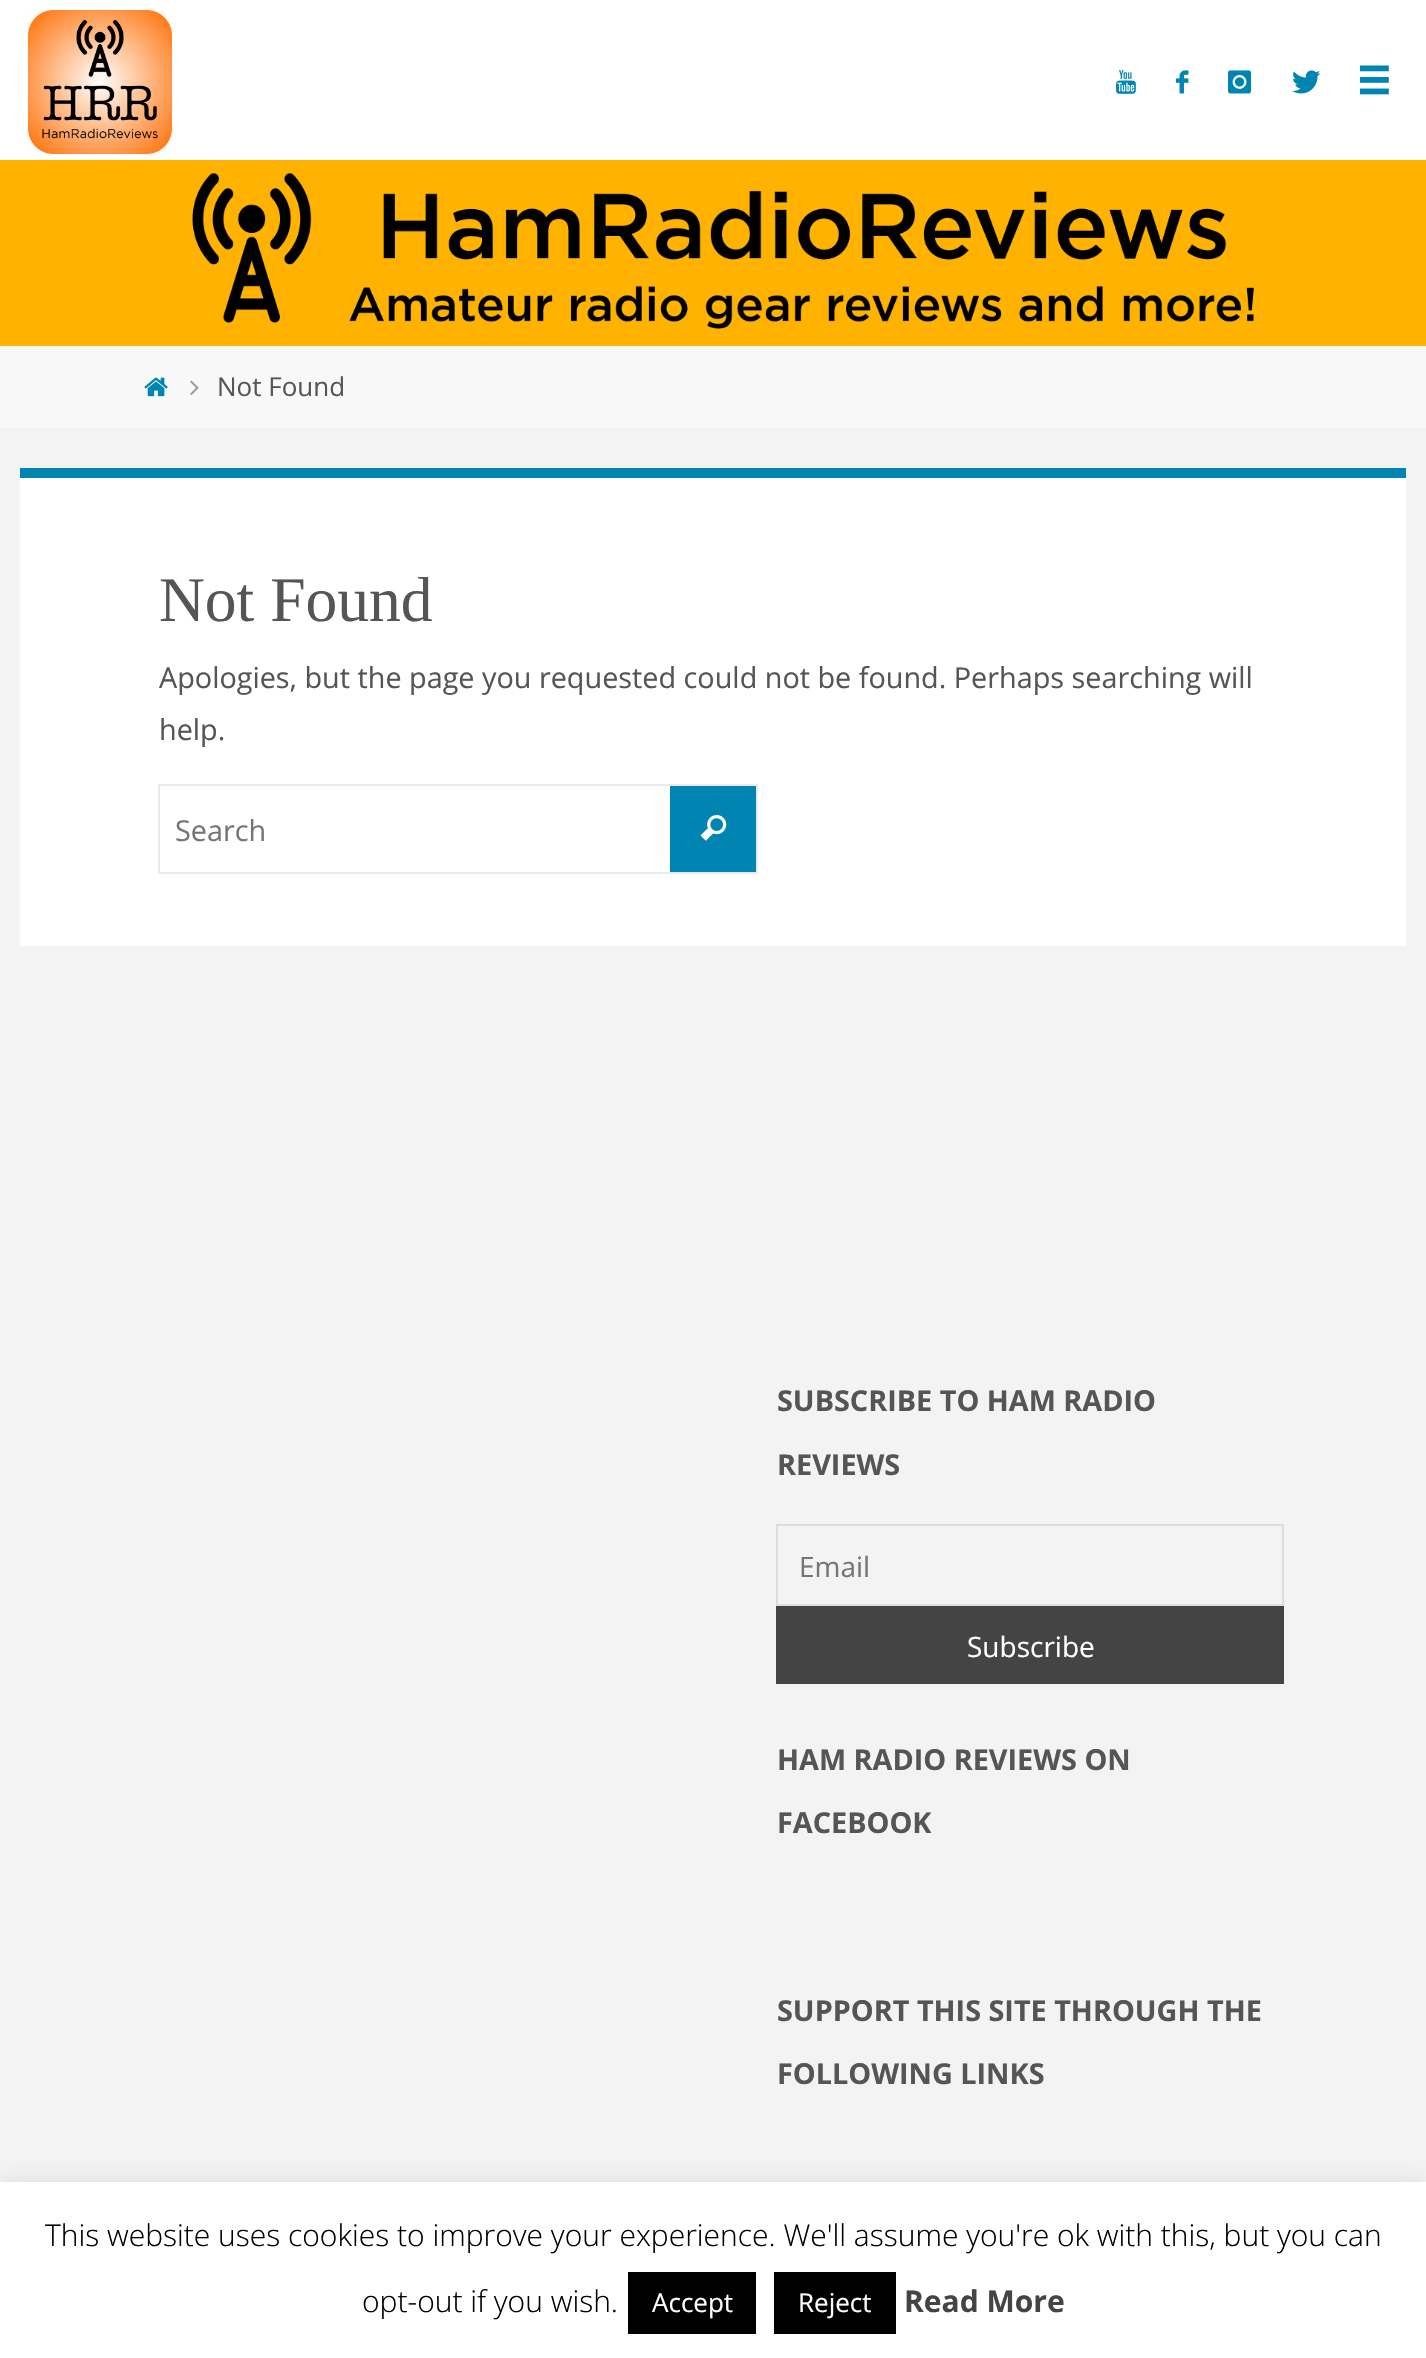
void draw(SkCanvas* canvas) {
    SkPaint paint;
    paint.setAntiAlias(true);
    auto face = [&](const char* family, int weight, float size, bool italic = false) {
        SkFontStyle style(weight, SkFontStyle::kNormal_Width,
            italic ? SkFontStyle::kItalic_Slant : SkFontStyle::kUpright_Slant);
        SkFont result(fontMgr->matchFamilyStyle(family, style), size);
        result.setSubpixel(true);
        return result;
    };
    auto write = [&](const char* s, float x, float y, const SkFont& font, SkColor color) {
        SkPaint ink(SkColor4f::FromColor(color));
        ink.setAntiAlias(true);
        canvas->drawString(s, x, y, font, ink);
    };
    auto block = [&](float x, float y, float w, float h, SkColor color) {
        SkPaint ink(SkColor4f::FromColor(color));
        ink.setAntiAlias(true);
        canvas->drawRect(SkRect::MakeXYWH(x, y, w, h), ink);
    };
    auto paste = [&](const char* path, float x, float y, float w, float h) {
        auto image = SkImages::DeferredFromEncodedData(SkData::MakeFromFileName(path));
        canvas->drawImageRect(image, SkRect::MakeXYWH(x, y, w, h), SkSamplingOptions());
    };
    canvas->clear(SkColorSetRGB(243, 243, 243));
    block(0, 0, 1426, 160, SK_ColorWHITE);
    paste("pic1.png", 28, 10, 144, 144);
    paste("pic2.png", 1116, 70, 20, 24);
    paste("pic3.png", 1176, 70, 13, 24);
    paste("pic4.png", 1228, 70, 24, 24);
    paste("pic5.png", 1292, 70, 29, 24);
    paste("pic6.png", 1360, 65, 29, 30);
    paste("pic7.png", 0, 160, 1426, 186);
    block(0, 346, 1426, 82, SkColorSetRGB(248, 248, 248));
    paste("pic8.png", 144, 377, 24, 20);
    paste("pic9.png", 190, 380, 9, 15);
    auto kFont1 = face("Open Sans", 400, 26);
    write("Not Found", 217, 396, kFont1, SkColorSetRGB(85, 85, 85));
    block(20, 478, 1386, 468, SK_ColorWHITE);
    block(20, 468, 1386, 10, SkColorSetRGB(0, 133, 178));
    auto kFont2 = face("Liberation Serif", 400, 63.5f);
    write("Not Found", 159, 621, kFont2, SkColorSetRGB(85, 85, 85));
    auto kFont3 = face("Open Sans", 400, 28.8f);
    write("Apologies, but the page you requested could not be found. Perhaps searching will", 159, 688, kFont3, SkColorSetRGB(85, 85, 85));
    write("help.", 159, 740, kFont3, SkColorSetRGB(85, 85, 85));
    paint.setStyle(SkPaint::kStroke_Style);
    paint.setStrokeWidth(2);
    paint.setColor(SkColorSetRGB(235, 235, 235));
    canvas->drawRect(SkRect::MakeXYWH(159, 785, 598, 88), paint);
    block(670, 786, 86, 86, SkColorSetRGB(0, 133, 178));
    write("Search", 175, 841, kFont3, SkColorSetRGB(117, 117, 117));
    paste("pic10.png", 700, 815, 27, 26);
    auto kFont4 = face("Open Sans", 700, 28.8f);
    write("SUBSCRIBE TO HAM RADIO", 777, 1411, kFont4, SkColorSetRGB(85, 85, 85));
    write("REVIEWS", 777, 1475, kFont4, SkColorSetRGB(85, 85, 85));
    paint.setColor(SkColorSetRGB(221, 221, 221));
    canvas->drawRect(SkRect::MakeXYWH(777, 1525, 506, 80), paint);
    auto kFont5 = face("Open Sans", 400, 28);
    write("Email", 799, 1577, kFont5, SkColorSetRGB(117, 117, 117));
    block(776, 1606, 508, 78, SkColorSetRGB(68, 68, 68));
    write("Subscribe", 967, 1657, kFont5, SK_ColorWHITE);
    write("HAM RADIO REVIEWS ON", 777, 1770, kFont4, SkColorSetRGB(85, 85, 85));
    write("FACEBOOK", 777, 1833, kFont4, SkColorSetRGB(85, 85, 85));
    write("SUPPORT THIS SITE THROUGH THE", 777, 2021, kFont4, SkColorSetRGB(85, 85, 85));
    write("FOLLOWING LINKS", 777, 2084, kFont4, SkColorSetRGB(85, 85, 85));
    paint.setStyle(SkPaint::kFill_Style);
    paint.setColor(SkColorSetARGB(77, 172, 171, 171));
    paint.setMaskFilter(SkMaskFilter::MakeBlur(kNormal_SkBlurStyle, 10));
    canvas->drawRect(SkRect::MakeXYWH(0, 2180, 1426, 176), paint);
    paint.setMaskFilter(nullptr);
    block(0, 2182, 1426, 176, SK_ColorWHITE);
    auto kFont6 = face("Open Sans", 300, 30);
    write("This website uses cookies to improve your experience. We'll assume you're ok with this, but you can", 45, 2246, kFont6, SK_ColorBLACK);
    write("opt-out if you wish.", 362, 2312, kFont6, SK_ColorBLACK);
    block(628, 2272, 128, 62, SK_ColorBLACK);
    write("Accept", 652, 2312, kFont1, SK_ColorWHITE);
    block(774, 2272, 122, 62, SK_ColorBLACK);
    write("Reject", 798, 2312, kFont1, SK_ColorWHITE);
    auto kFont7 = face("Open Sans", 700, 30);
    write("Read More", 904, 2312, kFont7, SkColorSetRGB(68, 68, 68));
}
